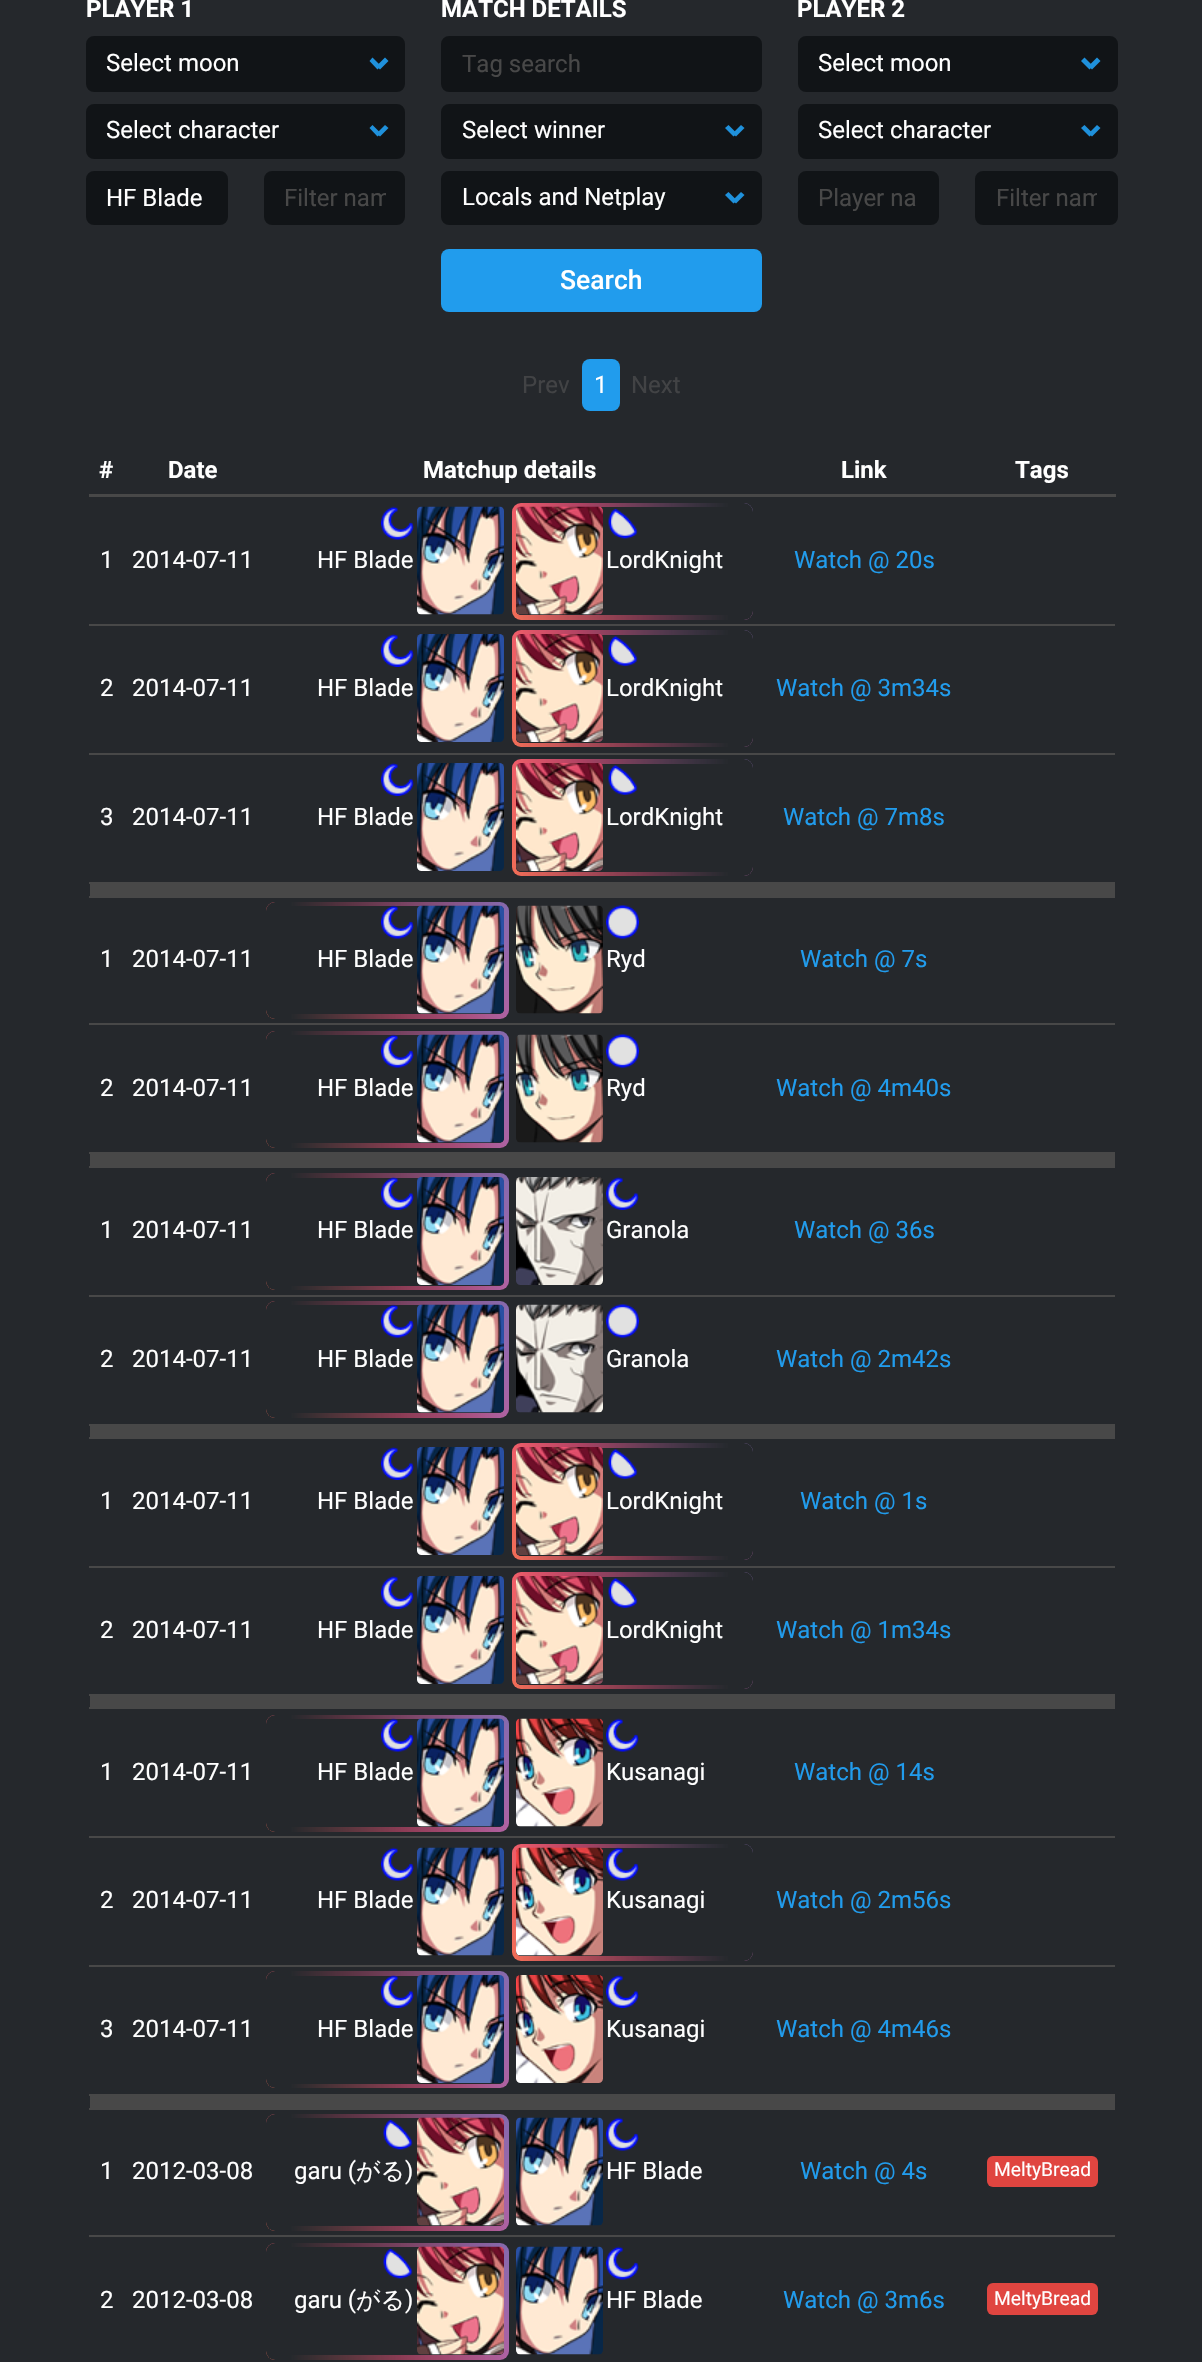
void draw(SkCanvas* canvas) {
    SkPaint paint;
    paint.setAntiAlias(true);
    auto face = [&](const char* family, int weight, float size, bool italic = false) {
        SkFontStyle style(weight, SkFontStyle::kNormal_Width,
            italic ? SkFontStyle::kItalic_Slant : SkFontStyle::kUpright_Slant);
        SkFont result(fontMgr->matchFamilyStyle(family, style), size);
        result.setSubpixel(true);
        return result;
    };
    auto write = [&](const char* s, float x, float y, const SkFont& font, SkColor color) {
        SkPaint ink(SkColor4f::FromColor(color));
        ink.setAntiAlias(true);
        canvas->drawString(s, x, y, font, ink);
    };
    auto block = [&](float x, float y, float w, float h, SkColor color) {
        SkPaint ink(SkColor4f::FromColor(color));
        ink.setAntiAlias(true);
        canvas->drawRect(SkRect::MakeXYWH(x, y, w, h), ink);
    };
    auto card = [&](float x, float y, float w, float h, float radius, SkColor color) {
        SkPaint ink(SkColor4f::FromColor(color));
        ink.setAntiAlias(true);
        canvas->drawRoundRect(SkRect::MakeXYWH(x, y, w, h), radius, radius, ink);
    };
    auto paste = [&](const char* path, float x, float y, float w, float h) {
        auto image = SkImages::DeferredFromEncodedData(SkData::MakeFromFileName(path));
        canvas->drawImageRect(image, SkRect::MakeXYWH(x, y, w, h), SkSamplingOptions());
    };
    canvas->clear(SkColorSetRGB(37, 40, 44));
    auto kFont1 = face("Roboto", 700, 24);
    write("PLAYER 1", 86, 17, kFont1, SK_ColorWHITE);
    paint.setColor(SkColorSetRGB(17, 20, 23));
    canvas->drawRoundRect(SkRect::MakeXYWH(87, 37, 317, 54), 7, 7, paint);
    paint.setStyle(SkPaint::kStroke_Style);
    paint.setStrokeWidth(2);
    canvas->drawRoundRect(SkRect::MakeXYWH(87, 37, 317, 54), 7, 7, paint);
    auto kFont2 = face("Roboto", 400, 24);
    write("Select moon", 106, 71, kFont2, SK_ColorWHITE);
    paint.setStyle(SkPaint::kFill_Style);
    paint.setColor(SkColorSetRGB(31, 145, 220));
    canvas->drawPath(SkPathBuilder().moveTo(376.5f, 66).lineTo(385, 57.5f).lineTo(388.5f, 61).lineTo(380, 69.5f).close().detach(), paint);
    canvas->drawPath(SkPathBuilder().moveTo(369.5f, 61).lineTo(372.5f, 57.5f).lineTo(381, 66).lineTo(377.5f, 69.5f).close().detach(), paint);
    paint.setColor(SkColorSetRGB(17, 20, 23));
    canvas->drawRoundRect(SkRect::MakeXYWH(87, 105, 317, 53), 7, 7, paint);
    paint.setStyle(SkPaint::kStroke_Style);
    canvas->drawRoundRect(SkRect::MakeXYWH(87, 105, 317, 53), 7, 7, paint);
    write("Select character", 106, 138, kFont2, SK_ColorWHITE);
    paint.setStyle(SkPaint::kFill_Style);
    paint.setColor(SkColorSetRGB(31, 145, 220));
    canvas->drawPath(SkPathBuilder().moveTo(376.5f, 133.5f).lineTo(385, 125).lineTo(388.5f, 128).lineTo(380, 136.5f).close().detach(), paint);
    canvas->drawPath(SkPathBuilder().moveTo(369.5f, 128).lineTo(372.5f, 125).lineTo(381, 133.5f).lineTo(377.5f, 136.5f).close().detach(), paint);
    paint.setColor(SkColorSetRGB(17, 20, 23));
    canvas->drawRoundRect(SkRect::MakeXYWH(87, 172, 140, 52), 7, 7, paint);
    paint.setStyle(SkPaint::kStroke_Style);
    canvas->drawRoundRect(SkRect::MakeXYWH(87, 172, 140, 52), 7, 7, paint);
    write("HF Blade", 106, 206, kFont2, SK_ColorWHITE);
    paint.setStyle(SkPaint::kFill_Style);
    canvas->drawRoundRect(SkRect::MakeXYWH(265, 172, 139, 52), 7, 7, paint);
    paint.setStyle(SkPaint::kStroke_Style);
    canvas->drawRoundRect(SkRect::MakeXYWH(265, 172, 139, 52), 7, 7, paint);
    canvas->save();
    canvas->clipRect(SkRect::MakeXYWH(284, 183, 102, 29));
    write("Filter nam", 284, 206, kFont2, SkColorSetRGB(72, 72, 72));
    canvas->restore();
    write("MATCH DETAILS", 441, 17, kFont1, SK_ColorWHITE);
    paint.setStyle(SkPaint::kFill_Style);
    canvas->drawRoundRect(SkRect::MakeXYWH(442, 37, 319, 54), 7, 7, paint);
    paint.setStyle(SkPaint::kStroke_Style);
    canvas->drawRoundRect(SkRect::MakeXYWH(442, 37, 319, 54), 7, 7, paint);
    write("Tag search", 462, 72, kFont2, SkColorSetRGB(72, 72, 72));
    paint.setStyle(SkPaint::kFill_Style);
    canvas->drawRoundRect(SkRect::MakeXYWH(442, 105, 319, 53), 7, 7, paint);
    paint.setStyle(SkPaint::kStroke_Style);
    canvas->drawRoundRect(SkRect::MakeXYWH(442, 105, 319, 53), 7, 7, paint);
    write("Select winner", 462, 138, kFont2, SK_ColorWHITE);
    paint.setStyle(SkPaint::kFill_Style);
    paint.setColor(SkColorSetRGB(31, 145, 220));
    canvas->drawPath(SkPathBuilder().moveTo(732.5f, 133.5f).lineTo(741, 125).lineTo(744.5f, 128).lineTo(736, 136.5f).close().detach(), paint);
    canvas->drawPath(SkPathBuilder().moveTo(725, 128).lineTo(728.5f, 125).lineTo(737, 133.5f).lineTo(733.5f, 136.5f).close().detach(), paint);
    paint.setColor(SkColorSetRGB(17, 20, 23));
    canvas->drawRoundRect(SkRect::MakeXYWH(442, 172, 319, 52), 7, 7, paint);
    paint.setStyle(SkPaint::kStroke_Style);
    canvas->drawRoundRect(SkRect::MakeXYWH(442, 172, 319, 52), 7, 7, paint);
    write("Locals and Netplay", 462, 205, kFont2, SK_ColorWHITE);
    paint.setStyle(SkPaint::kFill_Style);
    paint.setColor(SkColorSetRGB(31, 145, 220));
    canvas->drawPath(SkPathBuilder().moveTo(732.5f, 200.5f).lineTo(741, 192).lineTo(744.5f, 195).lineTo(736, 203.5f).close().detach(), paint);
    canvas->drawPath(SkPathBuilder().moveTo(725, 195).lineTo(728.5f, 192).lineTo(737, 200.5f).lineTo(733.5f, 203.5f).close().detach(), paint);
    write("PLAYER 2", 797, 17, kFont1, SK_ColorWHITE);
    paint.setColor(SkColorSetRGB(17, 20, 23));
    canvas->drawRoundRect(SkRect::MakeXYWH(799, 37, 318, 54), 7, 7, paint);
    paint.setStyle(SkPaint::kStroke_Style);
    canvas->drawRoundRect(SkRect::MakeXYWH(799, 37, 318, 54), 7, 7, paint);
    write("Select moon", 818, 71, kFont2, SK_ColorWHITE);
    paint.setStyle(SkPaint::kFill_Style);
    paint.setColor(SkColorSetRGB(31, 145, 220));
    canvas->drawPath(SkPathBuilder().moveTo(1088.5f, 66).lineTo(1097, 57.5f).lineTo(1100.5f, 61).lineTo(1092, 69.5f).close().detach(), paint);
    canvas->drawPath(SkPathBuilder().moveTo(1081, 61).lineTo(1084.5f, 57.5f).lineTo(1093, 66).lineTo(1089.5f, 69.5f).close().detach(), paint);
    paint.setColor(SkColorSetRGB(17, 20, 23));
    canvas->drawRoundRect(SkRect::MakeXYWH(799, 105, 318, 53), 7, 7, paint);
    paint.setStyle(SkPaint::kStroke_Style);
    canvas->drawRoundRect(SkRect::MakeXYWH(799, 105, 318, 53), 7, 7, paint);
    write("Select character", 818, 138, kFont2, SK_ColorWHITE);
    paint.setStyle(SkPaint::kFill_Style);
    paint.setColor(SkColorSetRGB(31, 145, 220));
    canvas->drawPath(SkPathBuilder().moveTo(1088.5f, 133.5f).lineTo(1097, 125).lineTo(1100.5f, 128).lineTo(1092, 136.5f).close().detach(), paint);
    canvas->drawPath(SkPathBuilder().moveTo(1081, 128).lineTo(1084.5f, 125).lineTo(1093, 133.5f).lineTo(1089.5f, 136.5f).close().detach(), paint);
    paint.setColor(SkColorSetRGB(17, 20, 23));
    canvas->drawRoundRect(SkRect::MakeXYWH(799, 172, 139, 52), 7, 7, paint);
    paint.setStyle(SkPaint::kStroke_Style);
    canvas->drawRoundRect(SkRect::MakeXYWH(799, 172, 139, 52), 7, 7, paint);
    write("Player na", 818, 206, kFont2, SkColorSetRGB(72, 72, 72));
    paint.setStyle(SkPaint::kFill_Style);
    canvas->drawRoundRect(SkRect::MakeXYWH(976, 172, 141, 52), 7, 7, paint);
    paint.setStyle(SkPaint::kStroke_Style);
    canvas->drawRoundRect(SkRect::MakeXYWH(976, 172, 141, 52), 7, 7, paint);
    canvas->save();
    canvas->clipRect(SkRect::MakeXYWH(996, 183, 101, 29));
    write("Filter nam", 996, 206, kFont2, SkColorSetRGB(72, 72, 72));
    canvas->restore();
    card(441, 249, 321, 63, 8, SkColorSetRGB(33, 156, 237));
    auto kFont3 = face("Roboto", 500, 26.5f);
    write("Search", 560, 289, kFont3, SK_ColorWHITE);
    write("Prev", 522, 393, kFont2, SkColorSetRGB(66, 67, 69));
    card(582, 359, 38, 52, 8, SkColorSetRGB(33, 156, 237));
    write("1", 594, 393, kFont2, SK_ColorWHITE);
    write("Next", 631, 393, kFont2, SkColorSetRGB(66, 67, 69));
    block(89, 494, 1027, 3, SkColorSetRGB(72, 72, 72));
    write("#", 99, 478, kFont1, SK_ColorWHITE);
    write("Date", 168, 478, kFont1, SK_ColorWHITE);
    write("Matchup details", 423, 478, kFont1, SK_ColorWHITE);
    write("Link", 841, 478, kFont1, SK_ColorWHITE);
    write("Tags", 1015, 478, kFont1, SK_ColorWHITE);
    write("1", 100, 568, kFont2, SK_ColorWHITE);
    write("2014-07-11", 132, 568, kFont2, SK_ColorWHITE);
    paste("pic1.png", 381, 506, 33, 34);
    paste("pic2.png", 417, 506, 87, 109);
    write("HF Blade", 317, 568, kFont2, SK_ColorWHITE);
    paint.setStyle(SkPaint::kFill_Style);
    {
        const SkColor colors[] = {SkColorSetRGB(247, 149, 51), SkColorSetRGB(243, 112, 85), SkColorSetRGB(239, 78, 123), SkColorSetRGB(161, 102, 171), SkColorSetRGB(80, 115, 184), SkColorSetRGB(16, 152, 173), SkColorSetRGB(7, 179, 155), SkColorSetRGB(111, 186, 130)};
        const float stops[] = {0, 0.14f, 0.29f, 0.43f, 0.57f, 0.71f, 0.86f, 1};
        const SkPoint ends[] = {{526, 879}, {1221, 477}};
        paint.setShader(SkGradientShader::MakeLinear(ends, colors, stops, 8, SkTileMode::kClamp));
        paint.setAlpha(255);
    }
    canvas->drawRoundRect(SkRect::MakeXYWH(512, 503, 241, 117), 9, 9, paint);
    {
        const SkColor colors[] = {SkColorSetRGB(37, 40, 44), SkColorSetARGB(0, 37, 40, 44)};
        const float stops[] = {0.1f, 1};
        const SkPoint ends[] = {{753, 561}, {512, 561}};
        paint.setShader(SkGradientShader::MakeLinear(ends, colors, stops, 2, SkTileMode::kClamp));
        paint.setAlpha(255);
    }
    canvas->drawRoundRect(SkRect::MakeXYWH(512, 503, 241, 117), 9, 9, paint);
    card(516, 507, 233, 108, 5, SkColorSetRGB(37, 40, 44));
    card(516, 507, 87, 108, 5, SkColorSetRGB(37, 40, 44));
    paste("pic3.png", 516, 506, 87, 109);
    paste("pic4.png", 608, 508, 30, 31);
    write("LordKnight", 606, 568, kFont2, SK_ColorWHITE);
    write("Watch @ 20s", 794, 568, kFont2, SkColorSetRGB(33, 156, 237));
    block(89, 624, 1026, 2, SkColorSetRGB(72, 72, 72));
    write("2", 100, 696, kFont2, SK_ColorWHITE);
    write("2014-07-11", 132, 696, kFont2, SK_ColorWHITE);
    paste("pic5.png", 381, 634, 33, 33);
    paste("pic6.png", 417, 634, 87, 108);
    write("HF Blade", 317, 696, kFont2, SK_ColorWHITE);
    {
        const SkColor colors[] = {SkColorSetRGB(247, 149, 51), SkColorSetRGB(243, 112, 85), SkColorSetRGB(239, 78, 123), SkColorSetRGB(161, 102, 171), SkColorSetRGB(80, 115, 184), SkColorSetRGB(16, 152, 173), SkColorSetRGB(7, 179, 155), SkColorSetRGB(111, 186, 130)};
        const float stops[] = {0, 0.14f, 0.29f, 0.43f, 0.57f, 0.71f, 0.86f, 1};
        const SkPoint ends[] = {{526, 1006}, {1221, 605}};
        paint.setShader(SkGradientShader::MakeLinear(ends, colors, stops, 8, SkTileMode::kClamp));
        paint.setAlpha(255);
    }
    canvas->drawRoundRect(SkRect::MakeXYWH(512, 630, 241, 117), 9, 9, paint);
    {
        const SkColor colors[] = {SkColorSetRGB(37, 40, 44), SkColorSetARGB(0, 37, 40, 44)};
        const float stops[] = {0.1f, 1};
        const SkPoint ends[] = {{753, 689}, {512, 689}};
        paint.setShader(SkGradientShader::MakeLinear(ends, colors, stops, 2, SkTileMode::kClamp));
        paint.setAlpha(255);
    }
    canvas->drawRoundRect(SkRect::MakeXYWH(512, 630, 241, 117), 9, 9, paint);
    card(516, 635, 233, 108, 5, SkColorSetRGB(37, 40, 44));
    card(516, 635, 87, 108, 5, SkColorSetRGB(37, 40, 44));
    paste("pic7.png", 516, 634, 87, 108);
    paste("pic8.png", 608, 636, 30, 30);
    write("LordKnight", 606, 696, kFont2, SK_ColorWHITE);
    write("Watch @ 3m34s", 776, 696, kFont2, SkColorSetRGB(33, 156, 237));
    block(89, 753, 1026, 2, SkColorSetRGB(72, 72, 72));
    block(89, 882, 1, 2, SkColorSetRGB(72, 72, 72));
    write("3", 100, 825, kFont2, SK_ColorWHITE);
    write("2014-07-11", 132, 825, kFont2, SK_ColorWHITE);
    paste("pic5.png", 381, 763, 33, 33);
    paste("pic6.png", 417, 763, 87, 108);
    write("HF Blade", 317, 825, kFont2, SK_ColorWHITE);
    {
        const SkColor colors[] = {SkColorSetRGB(247, 149, 51), SkColorSetRGB(243, 112, 85), SkColorSetRGB(239, 78, 123), SkColorSetRGB(161, 102, 171), SkColorSetRGB(80, 115, 184), SkColorSetRGB(16, 152, 173), SkColorSetRGB(7, 179, 155), SkColorSetRGB(111, 186, 130)};
        const float stops[] = {0, 0.14f, 0.29f, 0.43f, 0.57f, 0.71f, 0.86f, 1};
        const SkPoint ends[] = {{526, 1135}, {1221, 734}};
        paint.setShader(SkGradientShader::MakeLinear(ends, colors, stops, 8, SkTileMode::kClamp));
        paint.setAlpha(255);
    }
    canvas->drawRoundRect(SkRect::MakeXYWH(512, 759, 241, 117), 9, 9, paint);
    {
        const SkColor colors[] = {SkColorSetRGB(37, 40, 44), SkColorSetARGB(0, 37, 40, 44)};
        const float stops[] = {0.1f, 1};
        const SkPoint ends[] = {{753, 818}, {512, 818}};
        paint.setShader(SkGradientShader::MakeLinear(ends, colors, stops, 2, SkTileMode::kClamp));
        paint.setAlpha(255);
    }
    canvas->drawRoundRect(SkRect::MakeXYWH(512, 759, 241, 117), 9, 9, paint);
    card(516, 764, 233, 108, 5, SkColorSetRGB(37, 40, 44));
    card(516, 764, 87, 108, 5, SkColorSetRGB(37, 40, 44));
    paste("pic7.png", 516, 763, 87, 108);
    paste("pic8.png", 608, 765, 30, 30);
    write("LordKnight", 606, 825, kFont2, SK_ColorWHITE);
    write("Watch @ 7m8s", 783, 825, kFont2, SkColorSetRGB(33, 156, 237));
    block(90, 882, 1025, 14, SkColorSetRGB(72, 72, 72));
    block(89, 896, 1026, 2, SkColorSetRGB(72, 72, 72));
    write("1", 100, 967, kFont2, SK_ColorWHITE);
    write("2014-07-11", 132, 967, kFont2, SK_ColorWHITE);
    {
        const SkColor colors[] = {SkColorSetRGB(247, 149, 51), SkColorSetRGB(243, 112, 85), SkColorSetRGB(239, 78, 123), SkColorSetRGB(161, 102, 171), SkColorSetRGB(80, 115, 184), SkColorSetRGB(16, 152, 173), SkColorSetRGB(7, 179, 155), SkColorSetRGB(111, 186, 130)};
        const float stops[] = {0, 0.14f, 0.29f, 0.43f, 0.57f, 0.71f, 0.86f, 1};
        const SkPoint ends[] = {{281, 1279}, {979, 875}};
        paint.setShader(SkGradientShader::MakeLinear(ends, colors, stops, 8, SkTileMode::kClamp));
        paint.setAlpha(255);
    }
    canvas->drawRoundRect(SkRect::MakeXYWH(266, 902, 243, 117), 9, 9, paint);
    {
        const SkColor colors[] = {SkColorSetRGB(37, 40, 44), SkColorSetARGB(0, 37, 40, 44)};
        const float stops[] = {0.1f, 1};
        const SkPoint ends[] = {{266, 960}, {509, 960}};
        paint.setShader(SkGradientShader::MakeLinear(ends, colors, stops, 2, SkTileMode::kClamp));
        paint.setAlpha(255);
    }
    canvas->drawRoundRect(SkRect::MakeXYWH(266, 902, 243, 117), 9, 9, paint);
    card(270, 906, 234, 108, 5, SkColorSetRGB(37, 40, 44));
    paste("pic9.png", 381, 905, 33, 34);
    card(417, 906, 87, 108, 5, SkColorSetRGB(37, 40, 44));
    paste("pic10.png", 417, 905, 87, 109);
    write("HF Blade", 317, 967, kFont2, SK_ColorWHITE);
    paste("pic11.png", 516, 905, 87, 109);
    paste("pic12.png", 606, 905, 33, 34);
    write("Ryd", 606, 967, kFont2, SK_ColorWHITE);
    write("Watch @ 7s", 800, 967, kFont2, SkColorSetRGB(33, 156, 237));
    block(89, 1023, 1026, 2, SkColorSetRGB(72, 72, 72));
    write("2", 100, 1096, kFont2, SK_ColorWHITE);
    write("2014-07-11", 132, 1096, kFont2, SK_ColorWHITE);
    {
        const SkColor colors[] = {SkColorSetRGB(247, 149, 51), SkColorSetRGB(243, 112, 85), SkColorSetRGB(239, 78, 123), SkColorSetRGB(161, 102, 171), SkColorSetRGB(80, 115, 184), SkColorSetRGB(16, 152, 173), SkColorSetRGB(7, 179, 155), SkColorSetRGB(111, 186, 130)};
        const float stops[] = {0, 0.14f, 0.29f, 0.43f, 0.57f, 0.71f, 0.86f, 1};
        const SkPoint ends[] = {{281, 1408}, {979, 1004}};
        paint.setShader(SkGradientShader::MakeLinear(ends, colors, stops, 8, SkTileMode::kClamp));
        paint.setAlpha(255);
    }
    canvas->drawRoundRect(SkRect::MakeXYWH(266, 1031, 243, 117), 9, 9, paint);
    {
        const SkColor colors[] = {SkColorSetRGB(37, 40, 44), SkColorSetARGB(0, 37, 40, 44)};
        const float stops[] = {0.1f, 1};
        const SkPoint ends[] = {{266, 1089}, {509, 1089}};
        paint.setShader(SkGradientShader::MakeLinear(ends, colors, stops, 2, SkTileMode::kClamp));
        paint.setAlpha(255);
    }
    canvas->drawRoundRect(SkRect::MakeXYWH(266, 1031, 243, 117), 9, 9, paint);
    card(270, 1035, 234, 108, 5, SkColorSetRGB(37, 40, 44));
    paste("pic9.png", 381, 1034, 33, 34);
    card(417, 1035, 87, 108, 5, SkColorSetRGB(37, 40, 44));
    paste("pic10.png", 417, 1034, 87, 109);
    write("HF Blade", 317, 1096, kFont2, SK_ColorWHITE);
    paste("pic11.png", 516, 1034, 87, 109);
    paste("pic12.png", 606, 1034, 33, 34);
    write("Ryd", 606, 1096, kFont2, SK_ColorWHITE);
    write("Watch @ 4m40s", 776, 1096, kFont2, SkColorSetRGB(33, 156, 237));
    block(89, 1152, 1026, 2, SkColorSetRGB(72, 72, 72));
    block(90, 1154, 1025, 12, SkColorSetRGB(72, 72, 72));
    block(89, 1166, 1026, 2, SkColorSetRGB(72, 72, 72));
    write("1", 100, 1238, kFont2, SK_ColorWHITE);
    write("2014-07-11", 132, 1238, kFont2, SK_ColorWHITE);
    {
        const SkColor colors[] = {SkColorSetRGB(247, 149, 51), SkColorSetRGB(243, 112, 85), SkColorSetRGB(239, 78, 123), SkColorSetRGB(161, 102, 171), SkColorSetRGB(80, 115, 184), SkColorSetRGB(16, 152, 173), SkColorSetRGB(7, 179, 155), SkColorSetRGB(111, 186, 130)};
        const float stops[] = {0, 0.14f, 0.29f, 0.43f, 0.57f, 0.71f, 0.86f, 1};
        const SkPoint ends[] = {{281, 1550}, {979, 1147}};
        paint.setShader(SkGradientShader::MakeLinear(ends, colors, stops, 8, SkTileMode::kClamp));
        paint.setAlpha(255);
    }
    canvas->drawRoundRect(SkRect::MakeXYWH(266, 1173, 243, 117), 9, 9, paint);
    {
        const SkColor colors[] = {SkColorSetRGB(37, 40, 44), SkColorSetARGB(0, 37, 40, 44)};
        const float stops[] = {0.1f, 1};
        const SkPoint ends[] = {{266, 1232}, {509, 1232}};
        paint.setShader(SkGradientShader::MakeLinear(ends, colors, stops, 2, SkTileMode::kClamp));
        paint.setAlpha(255);
    }
    canvas->drawRoundRect(SkRect::MakeXYWH(266, 1173, 243, 117), 9, 9, paint);
    card(270, 1178, 234, 108, 5, SkColorSetRGB(37, 40, 44));
    paste("pic13.png", 381, 1177, 33, 33);
    card(417, 1178, 87, 108, 5, SkColorSetRGB(37, 40, 44));
    paste("pic14.png", 417, 1177, 87, 108);
    write("HF Blade", 317, 1238, kFont2, SK_ColorWHITE);
    paste("pic15.png", 516, 1177, 87, 108);
    paste("pic16.png", 606, 1177, 33, 33);
    write("Granola", 606, 1238, kFont2, SK_ColorWHITE);
    write("Watch @ 36s", 794, 1238, kFont2, SkColorSetRGB(33, 156, 237));
    block(89, 1295, 1026, 2, SkColorSetRGB(72, 72, 72));
    block(89, 1424, 1, 2, SkColorSetRGB(72, 72, 72));
    write("2", 100, 1367, kFont2, SK_ColorWHITE);
    write("2014-07-11", 132, 1367, kFont2, SK_ColorWHITE);
    {
        const SkColor colors[] = {SkColorSetRGB(247, 149, 51), SkColorSetRGB(243, 112, 85), SkColorSetRGB(239, 78, 123), SkColorSetRGB(161, 102, 171), SkColorSetRGB(80, 115, 184), SkColorSetRGB(16, 152, 173), SkColorSetRGB(7, 179, 155), SkColorSetRGB(111, 186, 130)};
        const float stops[] = {0, 0.14f, 0.29f, 0.43f, 0.57f, 0.71f, 0.86f, 1};
        const SkPoint ends[] = {{281, 1678}, {979, 1274}};
        paint.setShader(SkGradientShader::MakeLinear(ends, colors, stops, 8, SkTileMode::kClamp));
        paint.setAlpha(255);
    }
    canvas->drawRoundRect(SkRect::MakeXYWH(266, 1301, 243, 117), 9, 9, paint);
    {
        const SkColor colors[] = {SkColorSetRGB(37, 40, 44), SkColorSetARGB(0, 37, 40, 44)};
        const float stops[] = {0.1f, 1};
        const SkPoint ends[] = {{266, 1359}, {509, 1359}};
        paint.setShader(SkGradientShader::MakeLinear(ends, colors, stops, 2, SkTileMode::kClamp));
        paint.setAlpha(255);
    }
    canvas->drawRoundRect(SkRect::MakeXYWH(266, 1301, 243, 117), 9, 9, paint);
    card(270, 1305, 234, 108, 5, SkColorSetRGB(37, 40, 44));
    paste("pic9.png", 381, 1304, 33, 34);
    card(417, 1305, 87, 108, 5, SkColorSetRGB(37, 40, 44));
    paste("pic10.png", 417, 1304, 87, 109);
    write("HF Blade", 317, 1367, kFont2, SK_ColorWHITE);
    paste("pic17.png", 516, 1304, 87, 109);
    paste("pic12.png", 606, 1304, 33, 34);
    write("Granola", 606, 1367, kFont2, SK_ColorWHITE);
    write("Watch @ 2m42s", 776, 1367, kFont2, SkColorSetRGB(33, 156, 237));
    block(90, 1424, 1025, 13, SkColorSetRGB(72, 72, 72));
    block(89, 1437, 1026, 2, SkColorSetRGB(72, 72, 72));
    write("1", 100, 1509, kFont2, SK_ColorWHITE);
    write("2014-07-11", 132, 1509, kFont2, SK_ColorWHITE);
    paste("pic5.png", 381, 1447, 33, 33);
    paste("pic6.png", 417, 1447, 87, 108);
    write("HF Blade", 317, 1509, kFont2, SK_ColorWHITE);
    {
        const SkColor colors[] = {SkColorSetRGB(247, 149, 51), SkColorSetRGB(243, 112, 85), SkColorSetRGB(239, 78, 123), SkColorSetRGB(161, 102, 171), SkColorSetRGB(80, 115, 184), SkColorSetRGB(16, 152, 173), SkColorSetRGB(7, 179, 155), SkColorSetRGB(111, 186, 130)};
        const float stops[] = {0, 0.14f, 0.29f, 0.43f, 0.57f, 0.71f, 0.86f, 1};
        const SkPoint ends[] = {{526, 1819}, {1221, 1418}};
        paint.setShader(SkGradientShader::MakeLinear(ends, colors, stops, 8, SkTileMode::kClamp));
        paint.setAlpha(255);
    }
    canvas->drawRoundRect(SkRect::MakeXYWH(512, 1443, 241, 117), 9, 9, paint);
    {
        const SkColor colors[] = {SkColorSetRGB(37, 40, 44), SkColorSetARGB(0, 37, 40, 44)};
        const float stops[] = {0.1f, 1};
        const SkPoint ends[] = {{753, 1502}, {512, 1502}};
        paint.setShader(SkGradientShader::MakeLinear(ends, colors, stops, 2, SkTileMode::kClamp));
        paint.setAlpha(255);
    }
    canvas->drawRoundRect(SkRect::MakeXYWH(512, 1443, 241, 117), 9, 9, paint);
    card(516, 1448, 233, 108, 5, SkColorSetRGB(37, 40, 44));
    card(516, 1448, 87, 108, 5, SkColorSetRGB(37, 40, 44));
    paste("pic7.png", 516, 1447, 87, 108);
    paste("pic8.png", 608, 1449, 30, 30);
    write("LordKnight", 606, 1509, kFont2, SK_ColorWHITE);
    write("Watch @ 1s", 800, 1509, kFont2, SkColorSetRGB(33, 156, 237));
    block(89, 1566, 1026, 2, SkColorSetRGB(72, 72, 72));
    write("2", 100, 1638, kFont2, SK_ColorWHITE);
    write("2014-07-11", 132, 1638, kFont2, SK_ColorWHITE);
    paste("pic18.png", 381, 1576, 33, 33);
    paste("pic6.png", 417, 1576, 87, 108);
    write("HF Blade", 317, 1638, kFont2, SK_ColorWHITE);
    {
        const SkColor colors[] = {SkColorSetRGB(247, 149, 51), SkColorSetRGB(243, 112, 85), SkColorSetRGB(239, 78, 123), SkColorSetRGB(161, 102, 171), SkColorSetRGB(80, 115, 184), SkColorSetRGB(16, 152, 173), SkColorSetRGB(7, 179, 155), SkColorSetRGB(111, 186, 130)};
        const float stops[] = {0, 0.14f, 0.29f, 0.43f, 0.57f, 0.71f, 0.86f, 1};
        const SkPoint ends[] = {{526, 1948}, {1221, 1547}};
        paint.setShader(SkGradientShader::MakeLinear(ends, colors, stops, 8, SkTileMode::kClamp));
        paint.setAlpha(255);
    }
    canvas->drawRoundRect(SkRect::MakeXYWH(512, 1572, 241, 117), 9, 9, paint);
    {
        const SkColor colors[] = {SkColorSetRGB(37, 40, 44), SkColorSetARGB(0, 37, 40, 44)};
        const float stops[] = {0.1f, 1};
        const SkPoint ends[] = {{753, 1631}, {512, 1631}};
        paint.setShader(SkGradientShader::MakeLinear(ends, colors, stops, 2, SkTileMode::kClamp));
        paint.setAlpha(255);
    }
    canvas->drawRoundRect(SkRect::MakeXYWH(512, 1572, 241, 117), 9, 9, paint);
    card(516, 1577, 233, 108, 5, SkColorSetRGB(37, 40, 44));
    card(516, 1577, 87, 108, 5, SkColorSetRGB(37, 40, 44));
    paste("pic7.png", 516, 1576, 87, 108);
    paste("pic19.png", 608, 1578, 30, 30);
    write("LordKnight", 606, 1638, kFont2, SK_ColorWHITE);
    write("Watch @ 1m34s", 776, 1638, kFont2, SkColorSetRGB(33, 156, 237));
    block(89, 1694, 1026, 2, SkColorSetRGB(72, 72, 72));
    block(90, 1696, 1025, 11, SkColorSetRGB(72, 72, 72));
    block(89, 1707, 1026, 2, SkColorSetRGB(72, 72, 72));
    write("1", 100, 1780, kFont2, SK_ColorWHITE);
    write("2014-07-11", 132, 1780, kFont2, SK_ColorWHITE);
    {
        const SkColor colors[] = {SkColorSetRGB(247, 149, 51), SkColorSetRGB(243, 112, 85), SkColorSetRGB(239, 78, 123), SkColorSetRGB(161, 102, 171), SkColorSetRGB(80, 115, 184), SkColorSetRGB(16, 152, 173), SkColorSetRGB(7, 179, 155), SkColorSetRGB(111, 186, 130)};
        const float stops[] = {0, 0.14f, 0.29f, 0.43f, 0.57f, 0.71f, 0.86f, 1};
        const SkPoint ends[] = {{281, 2092}, {979, 1688}};
        paint.setShader(SkGradientShader::MakeLinear(ends, colors, stops, 8, SkTileMode::kClamp));
        paint.setAlpha(255);
    }
    canvas->drawRoundRect(SkRect::MakeXYWH(266, 1715, 243, 117), 9, 9, paint);
    {
        const SkColor colors[] = {SkColorSetRGB(37, 40, 44), SkColorSetARGB(0, 37, 40, 44)};
        const float stops[] = {0.1f, 1};
        const SkPoint ends[] = {{266, 1773}, {509, 1773}};
        paint.setShader(SkGradientShader::MakeLinear(ends, colors, stops, 2, SkTileMode::kClamp));
        paint.setAlpha(255);
    }
    canvas->drawRoundRect(SkRect::MakeXYWH(266, 1715, 243, 117), 9, 9, paint);
    card(270, 1719, 234, 108, 5, SkColorSetRGB(37, 40, 44));
    paste("pic9.png", 381, 1718, 33, 34);
    card(417, 1719, 87, 108, 5, SkColorSetRGB(37, 40, 44));
    paste("pic10.png", 417, 1718, 87, 109);
    write("HF Blade", 317, 1780, kFont2, SK_ColorWHITE);
    paste("pic20.png", 516, 1718, 87, 109);
    paste("pic21.png", 606, 1718, 33, 34);
    write("Kusanagi", 606, 1780, kFont2, SK_ColorWHITE);
    write("Watch @ 14s", 794, 1780, kFont2, SkColorSetRGB(33, 156, 237));
    block(89, 1836, 1026, 2, SkColorSetRGB(72, 72, 72));
    write("2", 100, 1908, kFont2, SK_ColorWHITE);
    write("2014-07-11", 132, 1908, kFont2, SK_ColorWHITE);
    paste("pic1.png", 381, 1847, 33, 34);
    paste("pic2.png", 417, 1847, 87, 109);
    write("HF Blade", 317, 1908, kFont2, SK_ColorWHITE);
    {
        const SkColor colors[] = {SkColorSetRGB(247, 149, 51), SkColorSetRGB(243, 112, 85), SkColorSetRGB(239, 78, 123), SkColorSetRGB(161, 102, 171), SkColorSetRGB(80, 115, 184), SkColorSetRGB(16, 152, 173), SkColorSetRGB(7, 179, 155), SkColorSetRGB(111, 186, 130)};
        const float stops[] = {0, 0.14f, 0.29f, 0.43f, 0.57f, 0.71f, 0.86f, 1};
        const SkPoint ends[] = {{526, 2220}, {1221, 1818}};
        paint.setShader(SkGradientShader::MakeLinear(ends, colors, stops, 8, SkTileMode::kClamp));
        paint.setAlpha(255);
    }
    canvas->drawRoundRect(SkRect::MakeXYWH(512, 1844, 241, 117), 9, 9, paint);
    {
        const SkColor colors[] = {SkColorSetRGB(37, 40, 44), SkColorSetARGB(0, 37, 40, 44)};
        const float stops[] = {0.1f, 1};
        const SkPoint ends[] = {{753, 1902}, {512, 1902}};
        paint.setShader(SkGradientShader::MakeLinear(ends, colors, stops, 2, SkTileMode::kClamp));
        paint.setAlpha(255);
    }
    canvas->drawRoundRect(SkRect::MakeXYWH(512, 1844, 241, 117), 9, 9, paint);
    card(516, 1848, 233, 108, 5, SkColorSetRGB(37, 40, 44));
    card(516, 1848, 87, 108, 5, SkColorSetRGB(37, 40, 44));
    paste("pic22.png", 516, 1847, 87, 109);
    paste("pic23.png", 606, 1847, 33, 34);
    write("Kusanagi", 606, 1908, kFont2, SK_ColorWHITE);
    write("Watch @ 2m56s", 776, 1908, kFont2, SkColorSetRGB(33, 156, 237));
    block(89, 1965, 1026, 2, SkColorSetRGB(72, 72, 72));
    block(89, 2094, 1, 2, SkColorSetRGB(72, 72, 72));
    write("3", 100, 2037, kFont2, SK_ColorWHITE);
    write("2014-07-11", 132, 2037, kFont2, SK_ColorWHITE);
    {
        const SkColor colors[] = {SkColorSetRGB(247, 149, 51), SkColorSetRGB(243, 112, 85), SkColorSetRGB(239, 78, 123), SkColorSetRGB(161, 102, 171), SkColorSetRGB(80, 115, 184), SkColorSetRGB(16, 152, 173), SkColorSetRGB(7, 179, 155), SkColorSetRGB(111, 186, 130)};
        const float stops[] = {0, 0.14f, 0.29f, 0.43f, 0.57f, 0.71f, 0.86f, 1};
        const SkPoint ends[] = {{281, 2348}, {979, 1945}};
        paint.setShader(SkGradientShader::MakeLinear(ends, colors, stops, 8, SkTileMode::kClamp));
        paint.setAlpha(255);
    }
    canvas->drawRoundRect(SkRect::MakeXYWH(266, 1971, 243, 117), 9, 9, paint);
    {
        const SkColor colors[] = {SkColorSetRGB(37, 40, 44), SkColorSetARGB(0, 37, 40, 44)};
        const float stops[] = {0.1f, 1};
        const SkPoint ends[] = {{266, 2030}, {509, 2030}};
        paint.setShader(SkGradientShader::MakeLinear(ends, colors, stops, 2, SkTileMode::kClamp));
        paint.setAlpha(255);
    }
    canvas->drawRoundRect(SkRect::MakeXYWH(266, 1971, 243, 117), 9, 9, paint);
    card(270, 1976, 234, 108, 5, SkColorSetRGB(37, 40, 44));
    paste("pic13.png", 381, 1975, 33, 33);
    card(417, 1976, 87, 108, 5, SkColorSetRGB(37, 40, 44));
    paste("pic14.png", 417, 1975, 87, 108);
    write("HF Blade", 317, 2037, kFont2, SK_ColorWHITE);
    paste("pic24.png", 516, 1975, 87, 108);
    paste("pic16.png", 606, 1975, 33, 33);
    write("Kusanagi", 606, 2037, kFont2, SK_ColorWHITE);
    write("Watch @ 4m46s", 776, 2037, kFont2, SkColorSetRGB(33, 156, 237));
    block(90, 2094, 1025, 14, SkColorSetRGB(72, 72, 72));
    block(89, 2108, 1026, 2, SkColorSetRGB(72, 72, 72));
    write("1", 100, 2179, kFont2, SK_ColorWHITE);
    write("2012-03-08", 132, 2179, kFont2, SK_ColorWHITE);
    {
        const SkColor colors[] = {SkColorSetRGB(247, 149, 51), SkColorSetRGB(243, 112, 85), SkColorSetRGB(239, 78, 123), SkColorSetRGB(161, 102, 171), SkColorSetRGB(80, 115, 184), SkColorSetRGB(16, 152, 173), SkColorSetRGB(7, 179, 155), SkColorSetRGB(111, 186, 130)};
        const float stops[] = {0, 0.14f, 0.29f, 0.43f, 0.57f, 0.71f, 0.86f, 1};
        const SkPoint ends[] = {{281, 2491}, {979, 2087}};
        paint.setShader(SkGradientShader::MakeLinear(ends, colors, stops, 8, SkTileMode::kClamp));
        paint.setAlpha(255);
    }
    canvas->drawRoundRect(SkRect::MakeXYWH(266, 2114, 243, 117), 9, 9, paint);
    {
        const SkColor colors[] = {SkColorSetRGB(37, 40, 44), SkColorSetARGB(0, 37, 40, 44)};
        const float stops[] = {0.1f, 1};
        const SkPoint ends[] = {{266, 2172}, {509, 2172}};
        paint.setShader(SkGradientShader::MakeLinear(ends, colors, stops, 2, SkTileMode::kClamp));
        paint.setAlpha(255);
    }
    canvas->drawRoundRect(SkRect::MakeXYWH(266, 2114, 243, 117), 9, 9, paint);
    card(270, 2118, 234, 108, 5, SkColorSetRGB(37, 40, 44));
    paste("pic25.png", 383, 2119, 30, 31);
    card(417, 2118, 87, 108, 5, SkColorSetRGB(37, 40, 44));
    paste("pic26.png", 417, 2117, 87, 109);
    write("garu (", 294, 2179, kFont2, SK_ColorWHITE);
    auto kFont4 = face("WenQuanYi Zen Hei", 500, 24);
    write("がる", 356, 2179, kFont4, SK_ColorWHITE);
    write(")", 405, 2179, kFont2, SK_ColorWHITE);
    paste("pic27.png", 516, 2117, 87, 109);
    paste("pic21.png", 606, 2117, 33, 34);
    write("HF Blade", 606, 2179, kFont2, SK_ColorWHITE);
    write("Watch @ 4s", 800, 2179, kFont2, SkColorSetRGB(33, 156, 237));
    block(89, 2235, 1026, 2, SkColorSetRGB(72, 72, 72));
    card(987, 2156, 111, 31, 6, SkColorSetRGB(224, 69, 64));
    auto kFont5 = face("Roboto", 400, 19.25f);
    write("MeltyBread", 994, 2176, kFont5, SK_ColorWHITE);
    write("2", 100, 2308, kFont2, SK_ColorWHITE);
    write("2012-03-08", 132, 2308, kFont2, SK_ColorWHITE);
    {
        const SkColor colors[] = {SkColorSetRGB(247, 149, 51), SkColorSetRGB(243, 112, 85), SkColorSetRGB(239, 78, 123), SkColorSetRGB(161, 102, 171), SkColorSetRGB(80, 115, 184), SkColorSetRGB(16, 152, 173), SkColorSetRGB(7, 179, 155), SkColorSetRGB(111, 186, 130)};
        const float stops[] = {0, 0.14f, 0.29f, 0.43f, 0.57f, 0.71f, 0.86f, 1};
        const SkPoint ends[] = {{281, 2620}, {979, 2216}};
        paint.setShader(SkGradientShader::MakeLinear(ends, colors, stops, 8, SkTileMode::kClamp));
        paint.setAlpha(255);
    }
    canvas->drawRoundRect(SkRect::MakeXYWH(266, 2243, 243, 117), 9, 9, paint);
    {
        const SkColor colors[] = {SkColorSetRGB(37, 40, 44), SkColorSetARGB(0, 37, 40, 44)};
        const float stops[] = {0.1f, 1};
        const SkPoint ends[] = {{266, 2301}, {509, 2301}};
        paint.setShader(SkGradientShader::MakeLinear(ends, colors, stops, 2, SkTileMode::kClamp));
        paint.setAlpha(255);
    }
    canvas->drawRoundRect(SkRect::MakeXYWH(266, 2243, 243, 117), 9, 9, paint);
    card(270, 2247, 234, 108, 5, SkColorSetRGB(37, 40, 44));
    paste("pic25.png", 383, 2248, 30, 31);
    card(417, 2247, 87, 108, 5, SkColorSetRGB(37, 40, 44));
    paste("pic26.png", 417, 2246, 87, 109);
    write("garu (", 294, 2308, kFont2, SK_ColorWHITE);
    write("がる", 356, 2308, kFont4, SK_ColorWHITE);
    write(")", 405, 2308, kFont2, SK_ColorWHITE);
    paste("pic27.png", 516, 2246, 87, 109);
    paste("pic21.png", 606, 2246, 33, 34);
    write("HF Blade", 606, 2308, kFont2, SK_ColorWHITE);
    write("Watch @ 3m6s", 783, 2308, kFont2, SkColorSetRGB(33, 156, 237));
    card(987, 2283, 111, 32, 6, SkColorSetRGB(224, 69, 64));
    write("MeltyBread", 994, 2305, kFont5, SK_ColorWHITE);
}
